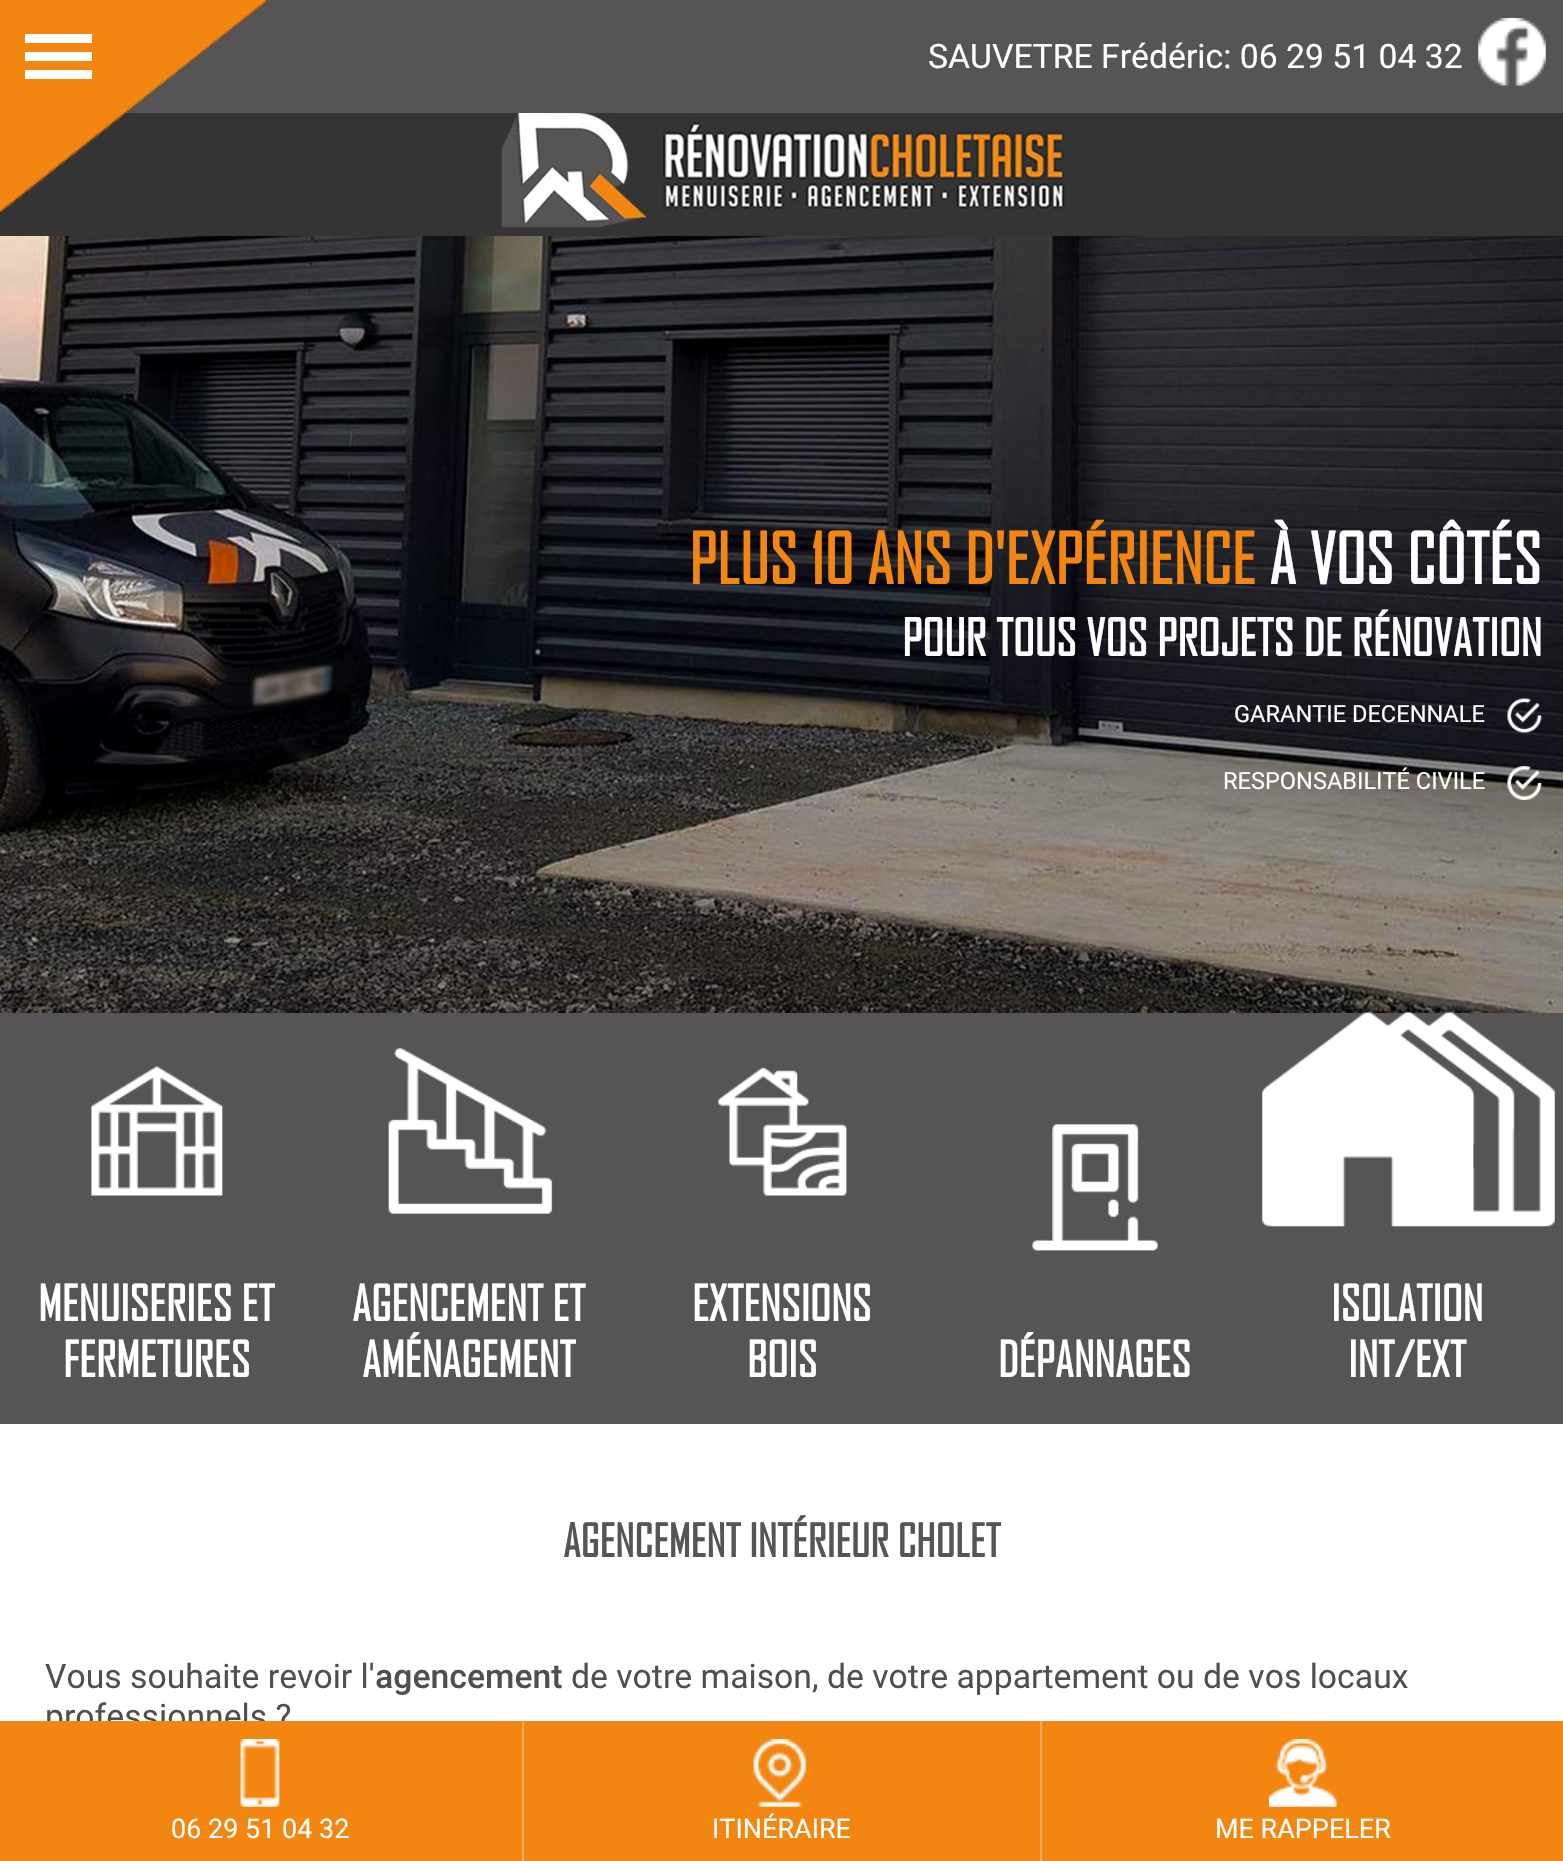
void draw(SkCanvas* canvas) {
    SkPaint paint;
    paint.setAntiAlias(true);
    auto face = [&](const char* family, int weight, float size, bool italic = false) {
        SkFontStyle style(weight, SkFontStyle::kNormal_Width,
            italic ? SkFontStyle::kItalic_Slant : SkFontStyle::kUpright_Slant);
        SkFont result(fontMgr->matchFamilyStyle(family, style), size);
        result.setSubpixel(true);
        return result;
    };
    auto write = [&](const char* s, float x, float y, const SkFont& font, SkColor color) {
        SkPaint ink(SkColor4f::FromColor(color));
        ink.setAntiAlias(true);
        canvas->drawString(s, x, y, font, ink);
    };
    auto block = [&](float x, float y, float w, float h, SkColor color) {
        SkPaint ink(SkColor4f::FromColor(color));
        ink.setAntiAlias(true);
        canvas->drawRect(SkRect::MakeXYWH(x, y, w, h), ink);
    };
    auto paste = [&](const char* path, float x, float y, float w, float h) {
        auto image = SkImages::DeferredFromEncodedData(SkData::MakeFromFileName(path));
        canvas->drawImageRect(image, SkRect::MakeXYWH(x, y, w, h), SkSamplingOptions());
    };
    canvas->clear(SK_ColorWHITE);
    block(122, 0, 1441, 113, SkColorSetRGB(86, 84, 85));
    block(0, 113, 1563, 123, SkColorSetRGB(52, 52, 52));
    paste("pic1.png", 0, 0, 269, 214);
    block(25, 34, 67, 9, SK_ColorWHITE);
    block(25, 52, 67, 9, SK_ColorWHITE);
    block(25, 70, 67, 9, SK_ColorWHITE);
    auto kFont1 = face("Roboto", 400, 33.75f);
    write("SAUVETRE Frédéric: 06 29 51 04 32", 928, 68, kFont1, SK_ColorWHITE);
    paste("pic2.png", 1478, 18, 68, 68);
    paste("pic3.png", 501, 113, 564, 115);
    paste("pic4.png", 0, 236, 1563, 777);
    auto kFont2 = face("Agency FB", 700, 67.5f);
    write("PLUS 10 ANS D'EXPÉRIENCE", 689, 584, kFont2, SkColorSetRGB(243, 134, 17));
    write("À VOS CÔTÉS", 1269, 584, kFont2, SK_ColorWHITE);
    auto kFont3 = face("Agency FB", 700, 49);
    write("POUR TOUS VOS PROJETS DE RÉNOVATION", 902, 656, kFont3, SK_ColorWHITE);
    auto kFont4 = face("Roboto", 400, 23.6f);
    write("GARANTIE DECENNALE", 1234, 722, kFont4, SK_ColorWHITE);
    paste("pic5.png", 1507, 698, 35, 35);
    write("RESPONSABILITÉ CIVILE", 1223, 789, kFont4, SK_ColorWHITE);
    paste("pic6.png", 1507, 766, 35, 34);
    block(0, 1013, 1563, 411, SkColorSetRGB(86, 84, 85));
    paste("pic7.png", 91, 1066, 132, 130);
    auto kFont5 = face("Agency FB", 700, 47.25f);
    write("MENUISERIES ET", 38, 1321, kFont5, SK_ColorWHITE);
    write("FERMETURES", 63, 1377, kFont5, SK_ColorWHITE);
    paste("pic8.png", 388, 1048, 165, 166);
    write("AGENCEMENT ET", 352, 1321, kFont5, SK_ColorWHITE);
    write("AMÉNAGEMENT", 362, 1377, kFont5, SK_ColorWHITE);
    paste("pic9.png", 718, 1067, 129, 129);
    write("EXTENSIONS", 692, 1321, kFont5, SK_ColorWHITE);
    write("BOIS", 747, 1377, kFont5, SK_ColorWHITE);
    paste("pic10.png", 1032, 1124, 126, 127);
    write("DÉPANNAGES", 998, 1377, kFont5, SK_ColorWHITE);
    paste("pic11.png", 1262, 1012, 293, 215);
    write("ISOLATION", 1331, 1321, kFont5, SK_ColorWHITE);
    write("INT/EXT", 1348, 1377, kFont5, SK_ColorWHITE);
    auto kFont6 = face("Agency FB", 700, 43.9f);
    write("AGENCEMENT INTÉRIEUR CHOLET", 563, 1557, kFont6, SkColorSetRGB(86, 84, 85));
    write("Vous souhaite revoir l'", 45, 1688, kFont1, SkColorSetRGB(79, 79, 79));
    auto kFont7 = face("Roboto", 500, 33.75f);
    write("agencement", 375, 1688, kFont7, SkColorSetRGB(79, 79, 79));
    write("de votre maison, de votre appartement ou de vos locaux", 571, 1688, kFont1, SkColorSetRGB(79, 79, 79));
    write("professionnels ?", 45, 1728, kFont1, SkColorSetRGB(79, 79, 79));
    block(0, 1721, 1563, 140, SkColorSetRGB(243, 134, 17));
    paste("pic12.png", 240, 1739, 40, 68);
    auto kFont8 = face("Roboto", 400, 27);
    write("06 29 51 04 32", 171, 1838, kFont8, SK_ColorWHITE);
    block(1040, 1721, 2, 140, SkColorSetRGB(247, 170, 88));
    block(522, 1721, 2, 140, SkColorSetRGB(247, 170, 88));
    paste("pic13.png", 753, 1739, 54, 68);
    write("ITINÉRAIRE", 712, 1838, kFont8, SK_ColorWHITE);
    paste("pic14.png", 1269, 1739, 68, 68);
    write("ME RAPPELER", 1215, 1838, kFont8, SK_ColorWHITE);
}
